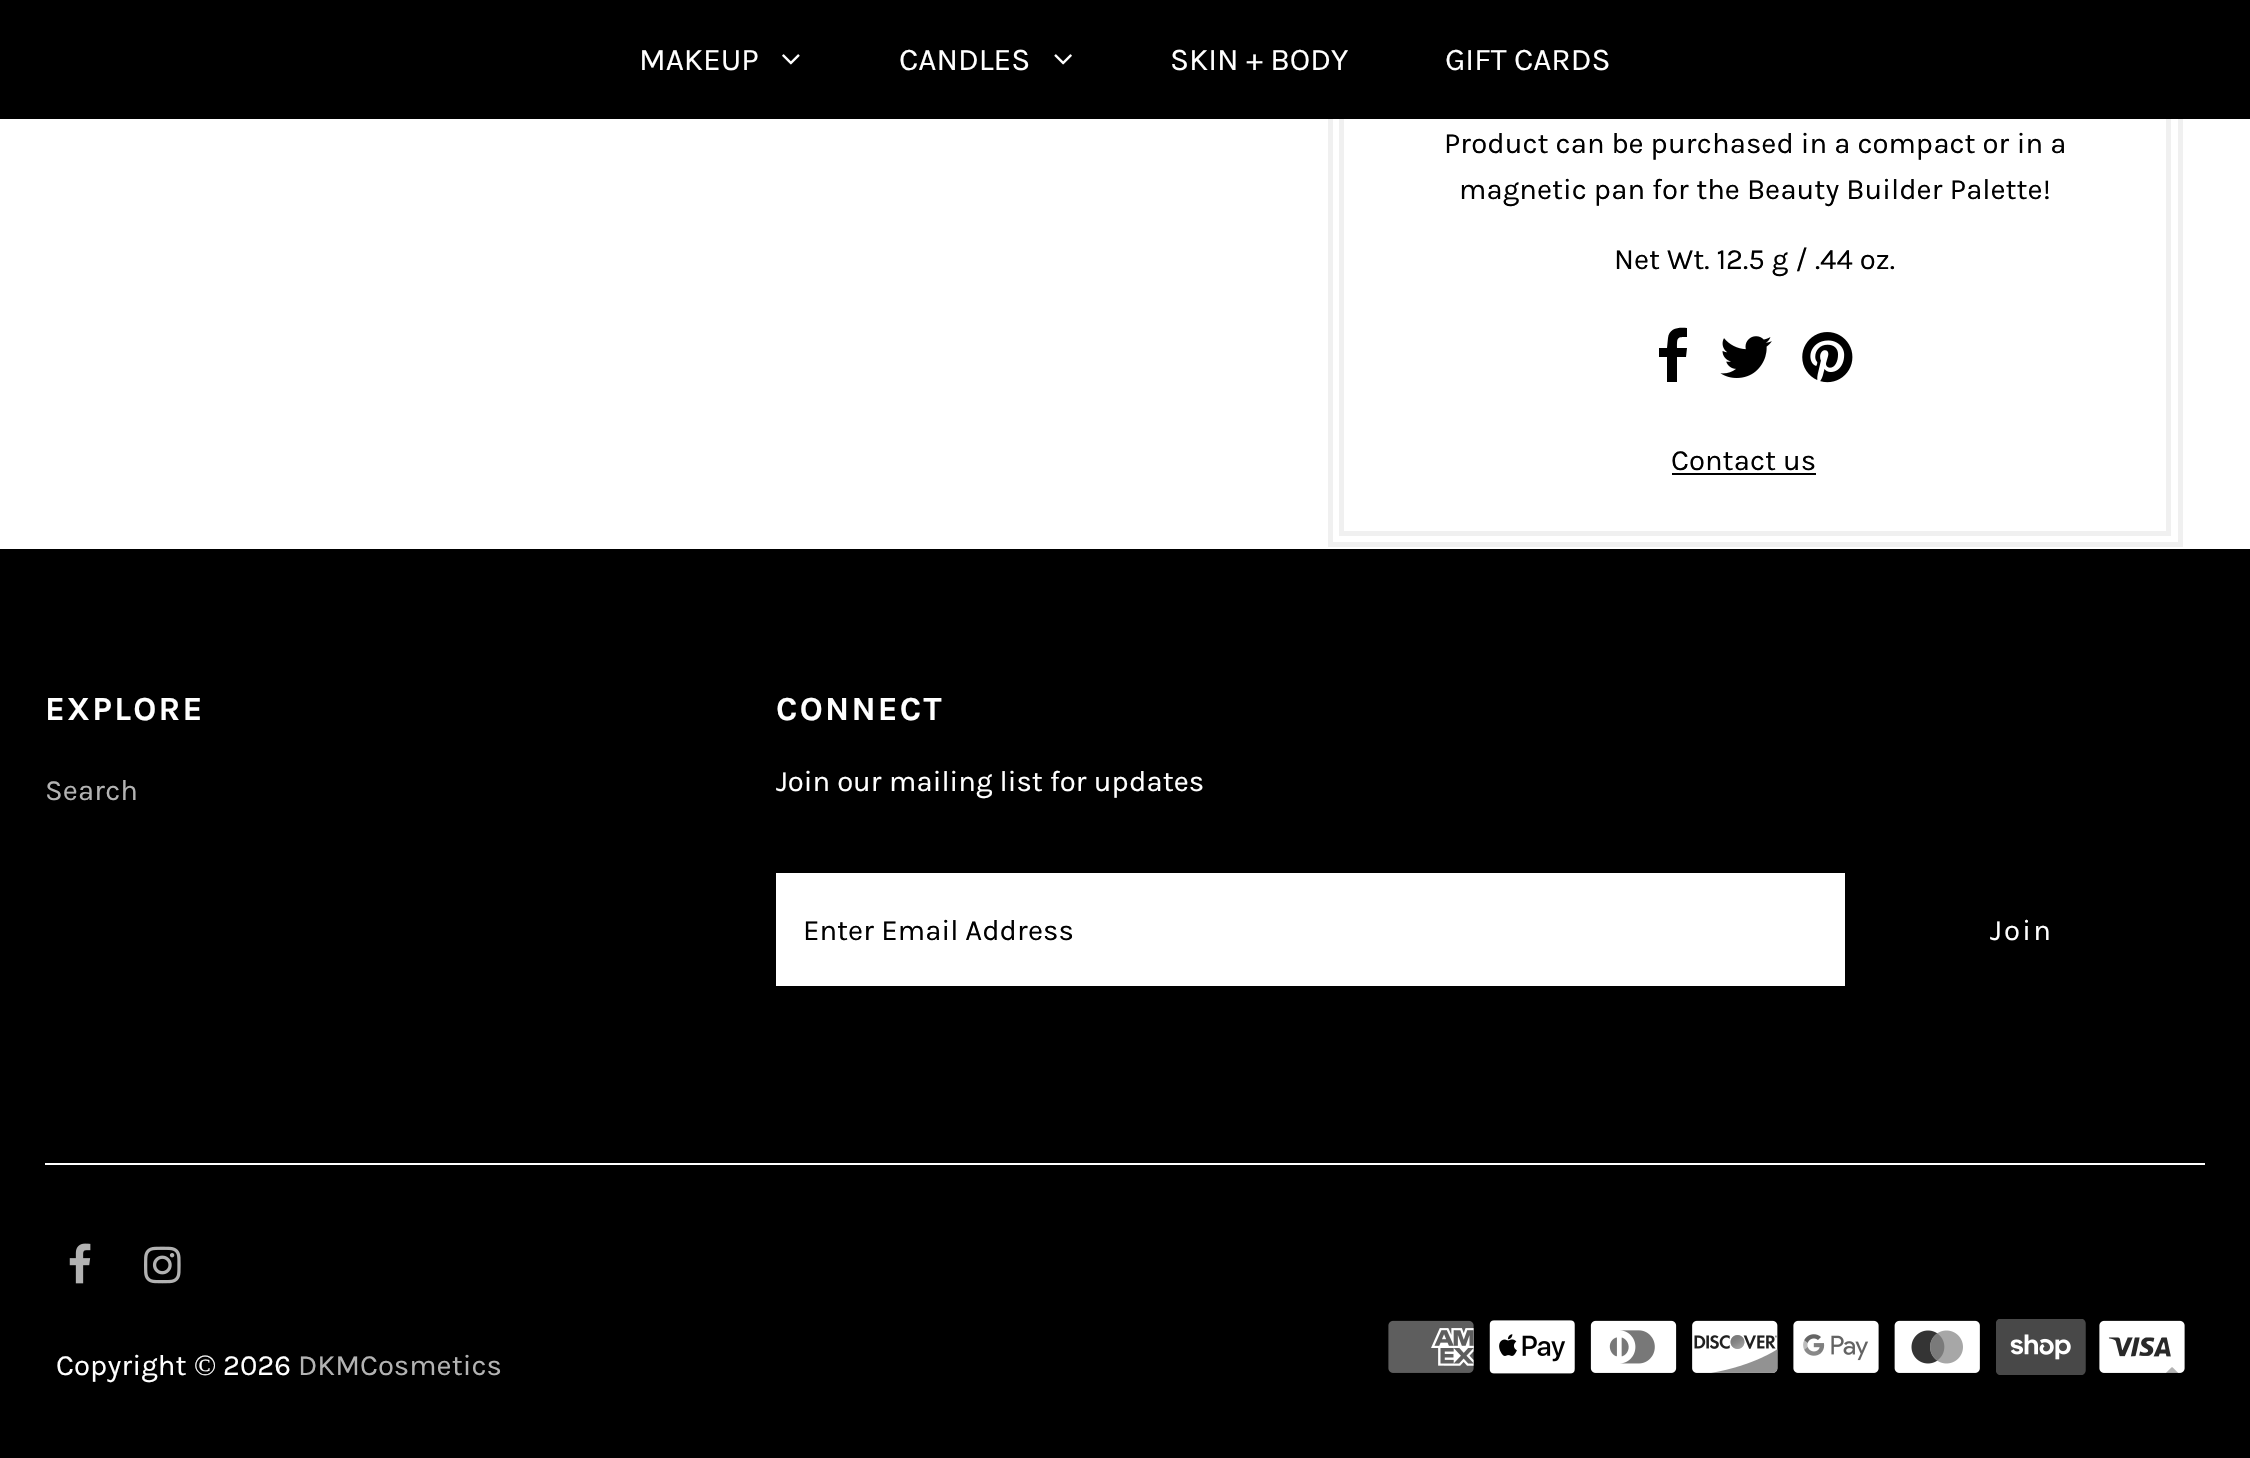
void draw(SkCanvas* canvas) {
    SkPaint paint;
    paint.setAntiAlias(true);
    auto face = [&](const char* family, int weight, float size, bool italic = false) {
        SkFontStyle style(weight, SkFontStyle::kNormal_Width,
            italic ? SkFontStyle::kItalic_Slant : SkFontStyle::kUpright_Slant);
        SkFont result(fontMgr->matchFamilyStyle(family, style), size);
        result.setSubpixel(true);
        return result;
    };
    auto write = [&](const char* s, float x, float y, const SkFont& font, SkColor color) {
        SkPaint ink(SkColor4f::FromColor(color));
        ink.setAntiAlias(true);
        canvas->drawString(s, x, y, font, ink);
    };
    auto writeSpaced = [&](const char* s, float x, float y, const SkFont& font, const SkPaint& ink, float letter, float word) {
        std::vector<SkGlyphID> glyphs(font.countText(s, strlen(s), SkTextEncoding::kUTF8));
        std::vector<float> xs(glyphs.size());
        font.textToGlyphs(s, strlen(s), SkTextEncoding::kUTF8, glyphs);
        font.getXPos(glyphs, xs, x);
        float extra = 0;
        for (size_t i = 0; i < glyphs.size(); i++) {
            xs[i] += extra;
            extra += letter + word * (glyphs[i] == font.unicharToGlyph(' '));
        }
        canvas->drawTextBlob(SkTextBlob::MakeFromPosHGlyphs(glyphs, xs, y, font), 0, 0, ink);
    };
    auto block = [&](float x, float y, float w, float h, SkColor color) {
        SkPaint ink(SkColor4f::FromColor(color));
        ink.setAntiAlias(true);
        canvas->drawRect(SkRect::MakeXYWH(x, y, w, h), ink);
    };
    auto paste = [&](const char* path, float x, float y, float w, float h) {
        auto image = SkImages::DeferredFromEncodedData(SkData::MakeFromFileName(path));
        canvas->drawImageRect(image, SkRect::MakeXYWH(x, y, w, h), SkSamplingOptions());
    };
    canvas->clear(SK_ColorWHITE);
    paint.setStyle(SkPaint::kStroke_Style);
    paint.setStrokeWidth(5);
    paint.setColor(SkColorSetRGB(240, 240, 240));
    canvas->drawRect(SkRect::MakeXYWH(1330.5f, -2.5f, 850, 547), paint);
    canvas->drawRect(SkRect::MakeXYWH(1341.5f, -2.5f, 827, 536), paint);
    block(0, 0, 2250, 119, SK_ColorBLACK);
    auto kFont1 = face("Karla", 400, 31.5f);
    write("MAKEUP", 639, 70, kFont1, SK_ColorWHITE);
    paste("pic1.png", 782, 54, 18, 11);
    write("CANDLES", 899, 70, kFont1, SK_ColorWHITE);
    paste("pic2.png", 1054, 54, 18, 11);
    write("SKIN + BODY", 1170, 70, kFont1, SK_ColorWHITE);
    write("GIFT CARDS", 1445, 70, kFont1, SK_ColorWHITE);
    auto kFont2 = face("Karla", 400, 29.25f);
    write("Product can be purchased in a compact or in a", 1444, 153, kFont2, SK_ColorBLACK);
    write("magnetic pan for the Beauty Builder Palette!", 1459, 199, kFont2, SK_ColorBLACK);
    write("Net Wt. 12.5 g / .44 oz.", 1614, 269, kFont2, SK_ColorBLACK);
    paint.setStyle(SkPaint::kFill_Style);
    paint.setColor(SK_ColorBLACK);
    canvas->drawPath(SkPathBuilder().moveTo(1687, 328).lineTo(1687, 337).cubicTo(1677, 337, 1677, 337, 1677, 348).lineTo(1687, 348).lineTo(1686, 357).lineTo(1677, 357).lineTo(1677, 382).lineTo(1667, 382).lineTo(1667, 357).lineTo(1659, 357).lineTo(1659, 348).lineTo(1667, 348).lineTo(1668, 338).cubicTo(1669, 328, 1679, 327, 1687, 328).close().detach(), paint);
    paste("pic3.png", 1720, 336, 52, 42);
    paste("pic4.png", 1802, 332, 51, 51);
    write("Contact us", 1671, 470, kFont2, SK_ColorBLACK);
    block(1672, 473, 144, 2, SK_ColorBLACK);
    block(0, 549, 2250, 909, SK_ColorBLACK);
    auto kFont3 = face("Karla", 700, 33.75f);
    paint.setColor(SK_ColorWHITE);
    writeSpaced("EXPLORE", 45, 720, kFont3, paint, 2.25f, 0);
    write("Search", 45, 800, kFont2, SkColorSetRGB(179, 179, 179));
    writeSpaced("CONNECT", 776, 720, kFont3, paint, 2.25f, 0);
    write("Join our mailing list for updates", 776, 791, kFont2, SK_ColorWHITE);
    block(776, 873, 1069, 113, SK_ColorWHITE);
    write("Enter Email Address", 803, 940, kFont2, SK_ColorBLACK);
    writeSpaced("Join", 1990, 940, kFont2, paint, 2.25f, 0);
    block(45, 1163, 2160, 2, SK_ColorWHITE);
    paste("pic5.png", 69, 1243, 22, 41);
    paste("pic6.png", 144, 1246, 37, 38);
    write("Copyright", 56, 1375, kFont2, SK_ColorWHITE);
    auto kFont4 = face("Liberation Serif", 400, 29.25f);
    write("©", 194, 1375, kFont4, SK_ColorWHITE);
    write("2026", 223, 1375, kFont2, SK_ColorWHITE);
    write("DKMCosmetics", 298, 1375, kFont2, SkColorSetRGB(179, 179, 179));
    paste("pic7.png", 1388, 1320, 86, 53);
    paste("pic8.png", 1489, 1320, 86, 54);
    paste("pic9.png", 1590, 1320, 87, 53);
    paste("pic10.png", 1692, 1320, 86, 53);
    paste("pic11.png", 1793, 1320, 86, 53);
    paste("pic12.png", 1894, 1320, 86, 53);
    paste("pic13.png", 1996, 1319, 90, 56);
    paste("pic14.png", 2099, 1320, 86, 53);
    paste("pic15.png", 2166, 1367, 12, 6);
}
